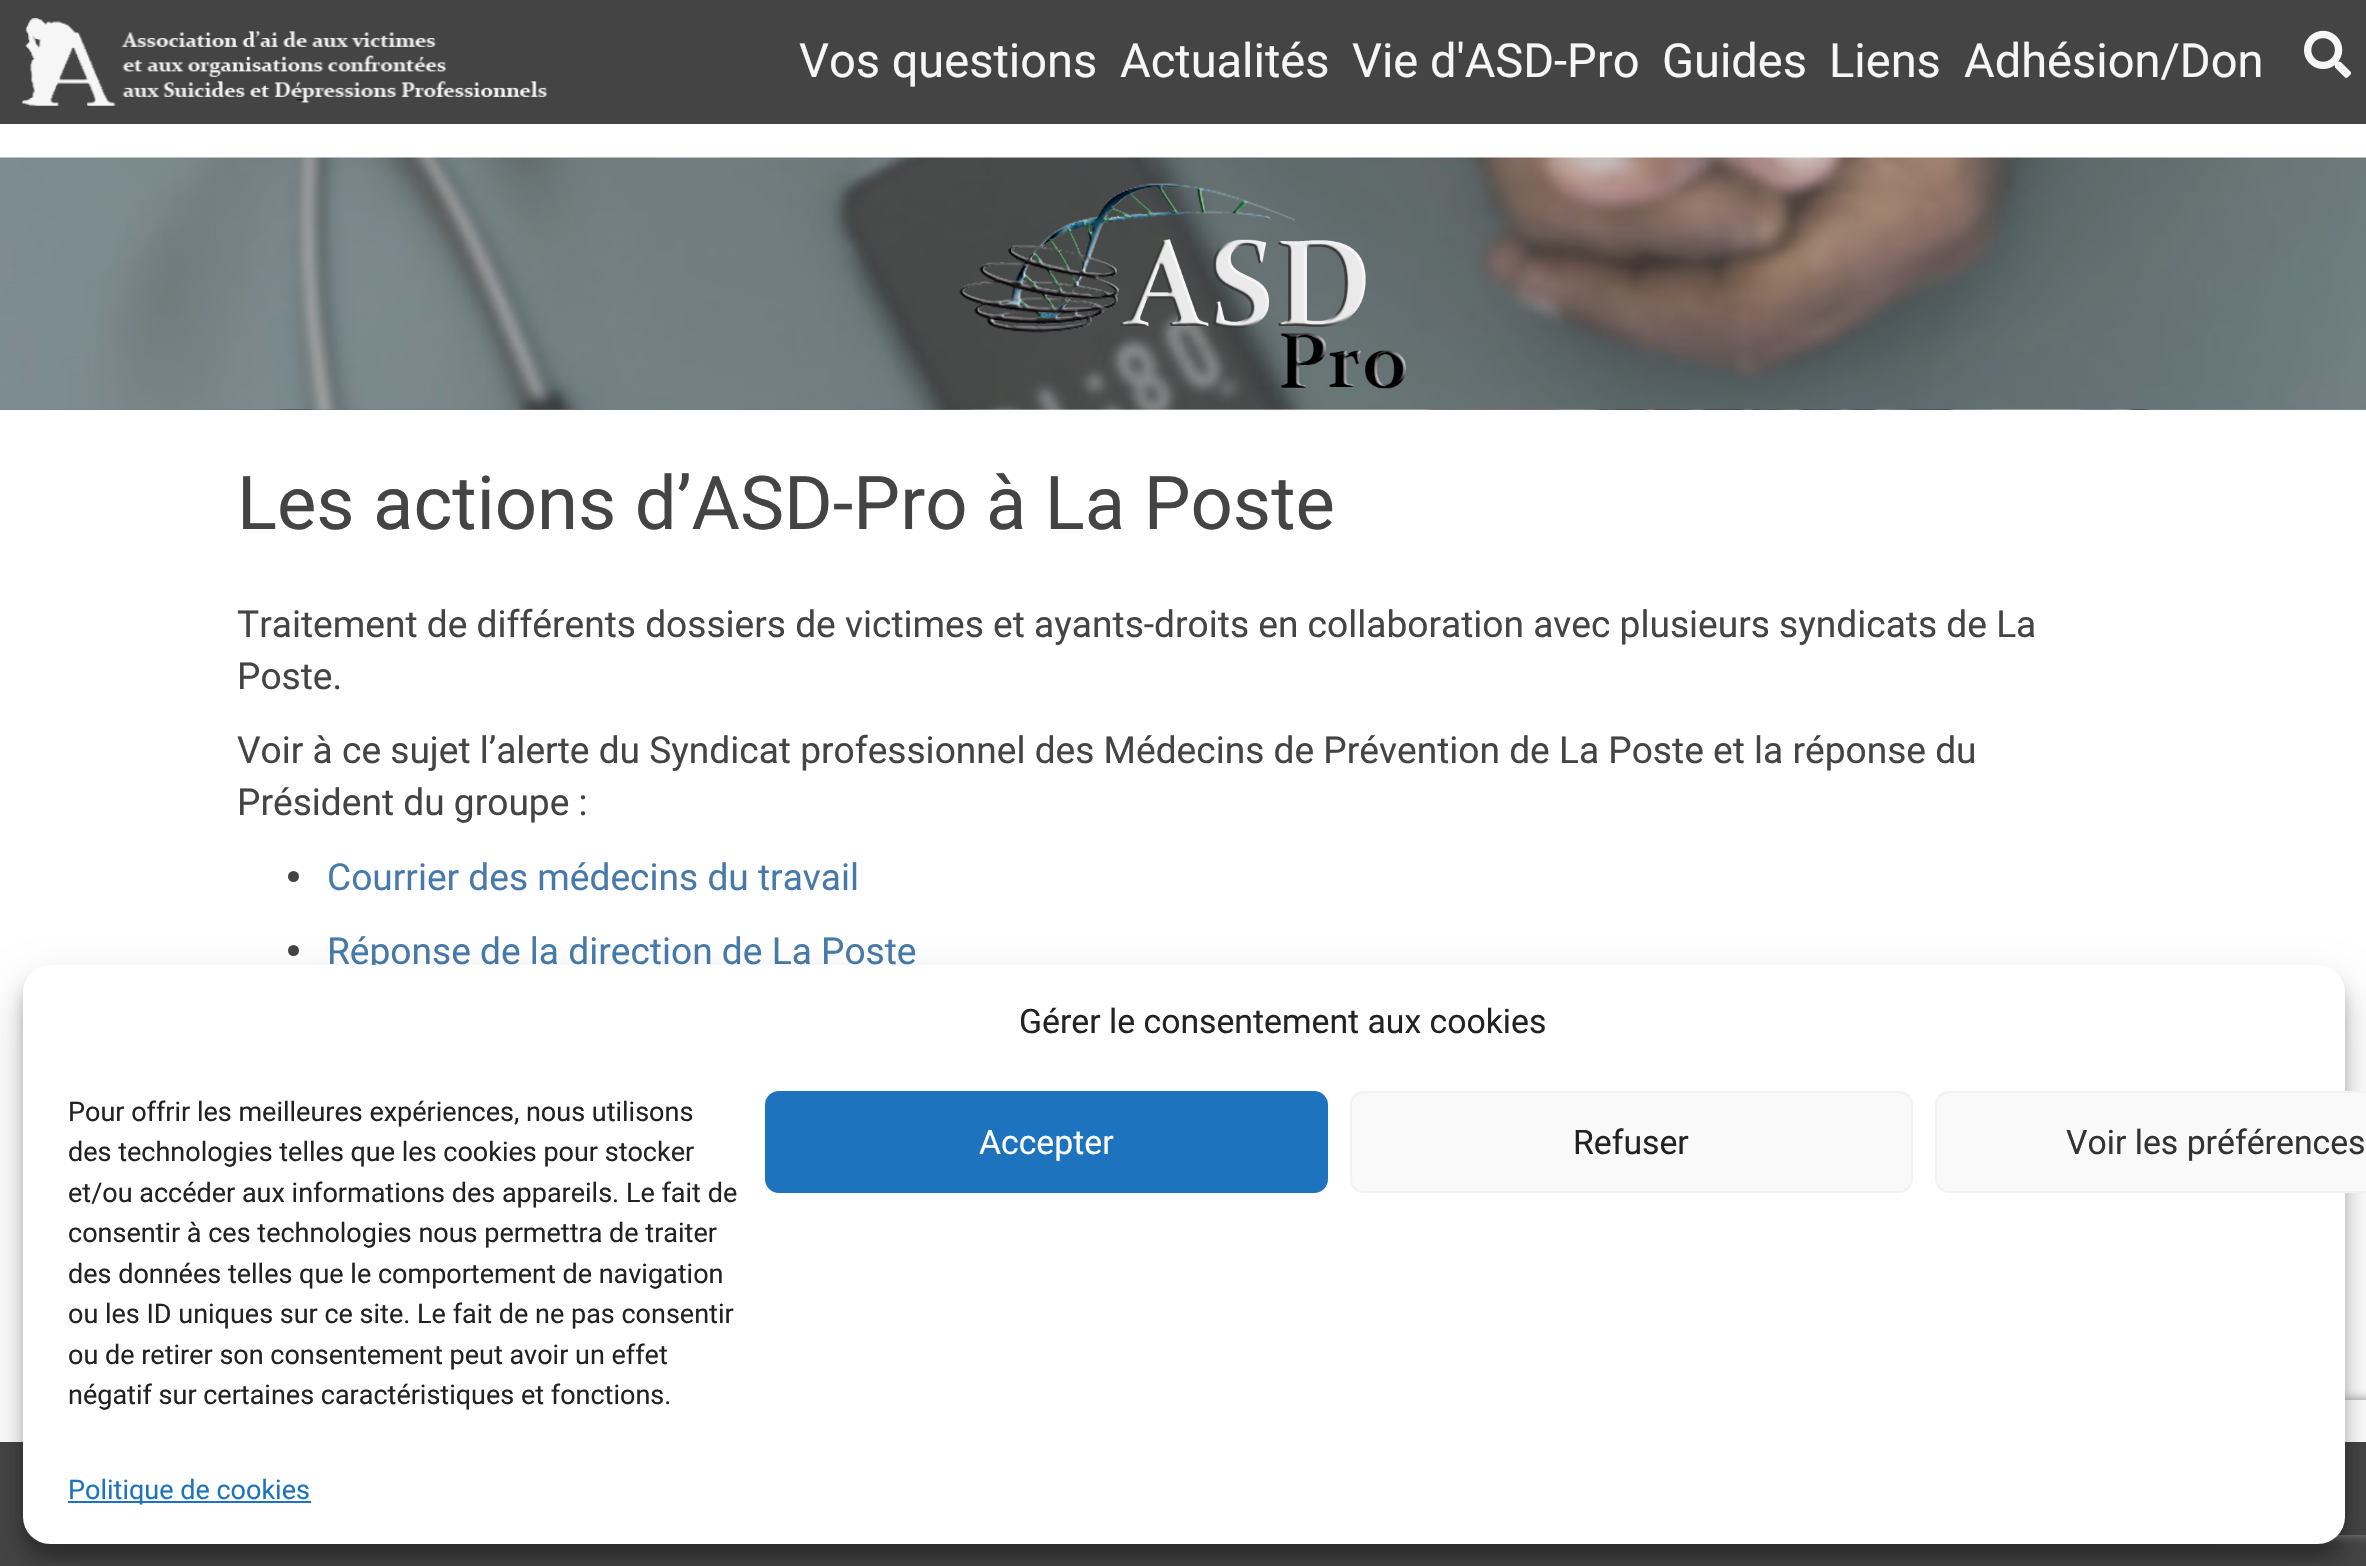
void draw(SkCanvas* canvas) {
    SkPaint paint;
    paint.setAntiAlias(true);
    auto face = [&](const char* family, int weight, float size, bool italic = false) {
        SkFontStyle style(weight, SkFontStyle::kNormal_Width,
            italic ? SkFontStyle::kItalic_Slant : SkFontStyle::kUpright_Slant);
        SkFont result(fontMgr->matchFamilyStyle(family, style), size);
        result.setSubpixel(true);
        return result;
    };
    auto write = [&](const char* s, float x, float y, const SkFont& font, SkColor color) {
        SkPaint ink(SkColor4f::FromColor(color));
        ink.setAntiAlias(true);
        canvas->drawString(s, x, y, font, ink);
    };
    auto block = [&](float x, float y, float w, float h, SkColor color) {
        SkPaint ink(SkColor4f::FromColor(color));
        ink.setAntiAlias(true);
        canvas->drawRect(SkRect::MakeXYWH(x, y, w, h), ink);
    };
    auto card = [&](float x, float y, float w, float h, float radius, SkColor color) {
        SkPaint ink(SkColor4f::FromColor(color));
        ink.setAntiAlias(true);
        canvas->drawRoundRect(SkRect::MakeXYWH(x, y, w, h), radius, radius, ink);
    };
    auto paste = [&](const char* path, float x, float y, float w, float h) {
        auto image = SkImages::DeferredFromEncodedData(SkData::MakeFromFileName(path));
        canvas->drawImageRect(image, SkRect::MakeXYWH(x, y, w, h), SkSamplingOptions());
    };
    canvas->clear(SK_ColorWHITE);
    block(0, 0, 2366, 124, SkColorSetRGB(68, 68, 68));
    paste("pic1.png", 22, 18, 526, 88);
    auto kFont1 = face("Roboto", 400, 47);
    write("Vos questions", 799, 77, kFont1, SkColorSetRGB(246, 246, 246));
    write("Actualités", 1120, 77, kFont1, SkColorSetRGB(246, 246, 246));
    write("Vie d'ASD-Pro", 1352, 77, kFont1, SkColorSetRGB(246, 246, 246));
    write("Guides", 1662, 77, kFont1, SkColorSetRGB(246, 246, 246));
    write("Liens", 1829, 77, kFont1, SkColorSetRGB(246, 246, 246));
    write("Adhésion/Don", 1964, 77, kFont1, SkColorSetRGB(246, 246, 246));
    paste("pic2.png", 2304, 30, 47, 48);
    paste("pic3.png", 0, 409, 2366, 1);
    paste("pic4.png", 0, 157, 2366, 253);
    paste("pic5.png", 959, 183, 447, 206);
    auto kFont2 = face("Roboto", 400, 74.25f);
    write("Les actions d’ASD-Pro à La Poste", 237, 529, kFont2, SkColorSetRGB(68, 68, 68));
    auto kFont3 = face("Roboto", 400, 37.1f);
    write("Traitement de différents dossiers de victimes et ayants-droits en collaboration avec plusieurs syndicats de La", 237, 637, kFont3, SkColorSetRGB(68, 68, 68));
    write("Poste.", 237, 689, kFont3, SkColorSetRGB(68, 68, 68));
    write("Voir à ce sujet l’alerte du Syndicat professionnel des Médecins de Prévention de La Poste et la réponse du", 237, 763, kFont3, SkColorSetRGB(68, 68, 68));
    write("Président du groupe :", 237, 815, kFont3, SkColorSetRGB(68, 68, 68));
    paint.setColor(SkColorSetRGB(68, 68, 68));
    canvas->drawCircle(293.5f, 876.5f, 5.5f, paint);
    write("Courrier des médecins du travail", 327, 890, kFont3, SkColorSetRGB(71, 122, 170));
    canvas->drawCircle(293.5f, 950.5f, 5.5f, paint);
    write("Réponse de la direction de La Poste", 327, 964, kFont3, SkColorSetRGB(71, 122, 170));
    block(0, 1442, 2366, 124, SkColorSetRGB(68, 68, 68));
    paint.setColor(SkColorSetARGB(59, 0, 0, 0));
    paint.setMaskFilter(SkMaskFilter::MakeBlur(kNormal_SkBlurStyle, 7));
    canvas->drawRoundRect(SkRect::MakeXYWH(23, 979, 2322, 578), 27, 27, paint);
    paint.setMaskFilter(nullptr);
    paint.setColor(SkColorSetARGB(48, 0, 0, 0));
    paint.setMaskFilter(SkMaskFilter::MakeBlur(kNormal_SkBlurStyle, 22.5f));
    canvas->drawRoundRect(SkRect::MakeXYWH(23, 988, 2322, 578), 27, 27, paint);
    paint.setMaskFilter(nullptr);
    canvas->save();
    canvas->clipPath(SkPathBuilder(SkPathFillType::kEvenOdd).moveTo(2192, 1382).lineTo(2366, 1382).lineTo(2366, 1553).lineTo(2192, 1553).close().moveTo(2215, 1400).lineTo(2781, 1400).cubicTo(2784, 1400, 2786, 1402, 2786, 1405).lineTo(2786, 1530).cubicTo(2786, 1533, 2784, 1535, 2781, 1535).lineTo(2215, 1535).cubicTo(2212, 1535, 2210, 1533, 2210, 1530).lineTo(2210, 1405).cubicTo(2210, 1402, 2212, 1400, 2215, 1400).close().detach(), true);
    paint.setColor(SkColorSetRGB(128, 128, 128));
    paint.setMaskFilter(SkMaskFilter::MakeBlur(kNormal_SkBlurStyle, 5.5f));
    canvas->drawRoundRect(SkRect::MakeXYWH(2210, 1400, 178, 135), 5, 5, paint);
    paint.setMaskFilter(nullptr);
    canvas->restore();
    card(23, 965, 2322, 579, 27, SK_ColorWHITE);
    auto kFont4 = face("Roboto", 400, 33.75f);
    write("Gérer le consentement aux cookies", 1019, 1033, kFont4, SkColorSetRGB(34, 34, 34));
    auto kFont5 = face("Roboto", 400, 27);
    write("Pour offrir les meilleures expériences, nous utilisons", 68, 1121, kFont5, SkColorSetRGB(34, 34, 34));
    write("des technologies telles que les cookies pour stocker", 68, 1161, kFont5, SkColorSetRGB(34, 34, 34));
    write("et/ou accéder aux informations des appareils. Le fait de", 68, 1202, kFont5, SkColorSetRGB(34, 34, 34));
    write("consentir à ces technologies nous permettra de traiter", 68, 1242, kFont5, SkColorSetRGB(34, 34, 34));
    write("des données telles que le comportement de navigation", 68, 1283, kFont5, SkColorSetRGB(34, 34, 34));
    write("ou les ID uniques sur ce site. Le fait de ne pas consentir", 68, 1323, kFont5, SkColorSetRGB(34, 34, 34));
    write("ou de retirer son consentement peut avoir un effet", 68, 1364, kFont5, SkColorSetRGB(34, 34, 34));
    write("négatif sur certaines caractéristiques et fonctions.", 68, 1404, kFont5, SkColorSetRGB(34, 34, 34));
    paint.setColor(SkColorSetRGB(30, 115, 190));
    canvas->drawRoundRect(SkRect::MakeXYWH(766, 1092, 561, 100), 13, 13, paint);
    paint.setStyle(SkPaint::kStroke_Style);
    paint.setStrokeWidth(2);
    canvas->drawRoundRect(SkRect::MakeXYWH(766, 1092, 561, 100), 13, 13, paint);
    write("Accepter", 979, 1154, kFont4, SK_ColorWHITE);
    paint.setStyle(SkPaint::kFill_Style);
    paint.setColor(SkColorSetRGB(249, 249, 249));
    canvas->drawRoundRect(SkRect::MakeXYWH(1351, 1092, 561, 100), 13, 13, paint);
    paint.setStyle(SkPaint::kStroke_Style);
    paint.setColor(SkColorSetRGB(242, 242, 242));
    canvas->drawRoundRect(SkRect::MakeXYWH(1351, 1092, 561, 100), 13, 13, paint);
    write("Refuser", 1573, 1154, kFont4, SkColorSetRGB(34, 34, 34));
    paint.setStyle(SkPaint::kFill_Style);
    paint.setColor(SkColorSetRGB(249, 249, 249));
    canvas->drawRoundRect(SkRect::MakeXYWH(1936, 1092, 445, 100), 13, 13, paint);
    paint.setStyle(SkPaint::kStroke_Style);
    paint.setColor(SkColorSetRGB(242, 242, 242));
    canvas->drawRoundRect(SkRect::MakeXYWH(1936, 1092, 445, 100), 13, 13, paint);
    write("Voir les préférences", 2066, 1154, kFont4, SkColorSetRGB(51, 51, 51));
    block(68, 1501, 243, 2, SkColorSetRGB(30, 115, 190));
    write("Politique de cookies", 68, 1499, kFont5, SkColorSetRGB(30, 115, 190));
}
